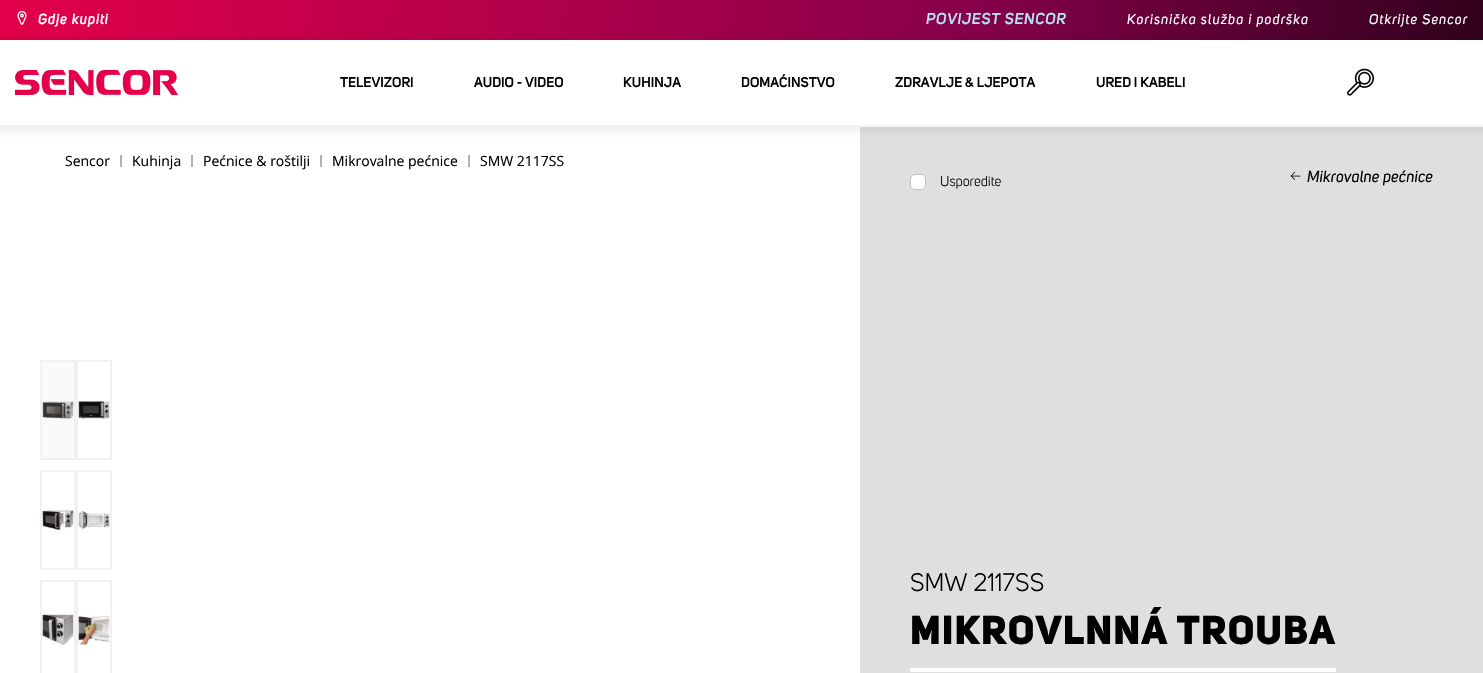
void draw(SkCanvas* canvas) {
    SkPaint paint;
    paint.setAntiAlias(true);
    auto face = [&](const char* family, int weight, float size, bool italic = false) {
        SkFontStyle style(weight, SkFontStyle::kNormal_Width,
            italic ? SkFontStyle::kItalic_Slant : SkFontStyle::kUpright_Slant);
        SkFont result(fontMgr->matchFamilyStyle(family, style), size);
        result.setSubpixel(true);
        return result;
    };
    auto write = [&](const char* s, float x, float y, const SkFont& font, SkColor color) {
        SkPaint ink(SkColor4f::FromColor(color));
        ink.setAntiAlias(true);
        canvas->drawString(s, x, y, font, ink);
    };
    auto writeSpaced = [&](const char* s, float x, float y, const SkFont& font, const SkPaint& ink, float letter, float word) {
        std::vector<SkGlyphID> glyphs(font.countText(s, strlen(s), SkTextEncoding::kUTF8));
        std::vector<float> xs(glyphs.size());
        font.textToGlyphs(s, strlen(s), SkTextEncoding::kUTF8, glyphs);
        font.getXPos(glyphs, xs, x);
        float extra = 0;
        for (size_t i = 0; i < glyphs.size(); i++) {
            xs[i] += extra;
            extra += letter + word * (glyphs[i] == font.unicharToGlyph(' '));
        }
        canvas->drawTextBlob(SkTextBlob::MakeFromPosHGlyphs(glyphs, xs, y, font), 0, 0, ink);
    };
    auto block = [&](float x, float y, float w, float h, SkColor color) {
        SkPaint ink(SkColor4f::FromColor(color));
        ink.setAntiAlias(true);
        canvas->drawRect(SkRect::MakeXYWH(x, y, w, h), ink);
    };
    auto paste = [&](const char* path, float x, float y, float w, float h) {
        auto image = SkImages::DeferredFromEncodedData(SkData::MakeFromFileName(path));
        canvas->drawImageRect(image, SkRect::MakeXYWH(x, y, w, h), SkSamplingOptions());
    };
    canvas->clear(SkColorSetRGB(223, 223, 223));
    {
        const SkColor colors[] = {SkColorSetRGB(49, 1, 29), SkColorSetRGB(136, 0, 74), SkColorSetRGB(227, 0, 74)};
        const float stops[] = {0, 0.35f, 1};
        const SkPoint ends[] = {{1483, 20}, {0, 20}};
        paint.setShader(SkGradientShader::MakeLinear(ends, colors, stops, 3, SkTileMode::kClamp));
        paint.setAlpha(255);
    }
    canvas->drawRect(SkRect::MakeXYWH(0, 0, 1483, 40), paint);
    paste("pic1.png", 17, 10, 10, 15);
    auto kFont1 = face("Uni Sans", 700, 14, true);
    paint.setShader(nullptr);
    paint.setColor(SK_ColorWHITE);
    writeSpaced("Gdje kupiti", 38, 24, kFont1, paint, 1, 0);
    auto kFont2 = face("Uni Sans", 700, 15, true);
    paint.setColor(SkColorSetRGB(185, 228, 249));
    writeSpaced("POVIJEST SENCOR", 926, 24, kFont2, paint, 1, 0);
    auto kFont3 = face("Uni Sans", 400, 14, true);
    paint.setColor(SK_ColorWHITE);
    writeSpaced("Korisnička služba i podrška", 1127, 24, kFont3, paint, 1, 0);
    writeSpaced("Otkrijte Sencor", 1369, 24, kFont3, paint, 1, 0);
    block(0, 127, 860, 546, SK_ColorWHITE);
    paint.setColor(SkColorSetARGB(13, 0, 0, 1));
    paint.setMaskFilter(SkMaskFilter::MakeBlur(kNormal_SkBlurStyle, 2.5f));
    canvas->drawRect(SkRect::MakeXYWH(-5, 36, 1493, 97), paint);
    paint.setMaskFilter(nullptr);
    block(0, 40, 1483, 85, SK_ColorWHITE);
    block(0, 125, 1483, 2, SkColorSetRGB(243, 243, 243));
    paste("pic2.png", 15, 70, 163, 25);
    auto kFont4 = face("Uni Sans", 600, 14);
    write("TELEVIZORI", 340, 87, kFont4, SkColorSetRGB(0, 0, 1));
    write("AUDIO - VIDEO", 474, 87, kFont4, SkColorSetRGB(0, 0, 1));
    write("KUHINJA", 623, 87, kFont4, SkColorSetRGB(0, 0, 1));
    write("DOMAĆINSTVO", 741, 87, kFont4, SkColorSetRGB(0, 0, 1));
    write("ZDRAVLJE & LJEPOTA", 895, 87, kFont4, SkColorSetRGB(0, 0, 1));
    write("URED I KABELI", 1096, 87, kFont4, SkColorSetRGB(0, 0, 1));
    paste("pic3.png", 1347, 68, 27, 28);
    auto kFont5 = face("Open Sans", 400, 14);
    write("Sencor", 65, 166, kFont5, SkColorSetRGB(0, 0, 1));
    block(120, 155, 2, 12, SkColorSetRGB(176, 176, 176));
    write("Kuhinja", 132, 166, kFont5, SkColorSetRGB(0, 0, 1));
    block(191, 155, 2, 12, SkColorSetRGB(176, 176, 176));
    write("Pećnice & roštilji", 203, 166, kFont5, SkColorSetRGB(0, 0, 1));
    block(320, 155, 2, 12, SkColorSetRGB(176, 176, 176));
    write("Mikrovalne pećnice", 332, 166, kFont5, SkColorSetRGB(0, 0, 1));
    block(468, 155, 2, 12, SkColorSetRGB(176, 176, 176));
    write("SMW 2117SS", 480, 166, kFont5, SkColorSetRGB(0, 0, 1));
    block(42, 362, 32, 96, SkColorSetRGB(250, 250, 250));
    paste("pic4.png", 42, 401, 32, 19);
    paint.setStyle(SkPaint::kStroke_Style);
    paint.setStrokeWidth(2);
    paint.setColor(SkColorSetRGB(241, 241, 241));
    canvas->drawRect(SkRect::MakeXYWH(41, 361, 34, 98), paint);
    paste("pic5.png", 78, 401, 32, 19);
    canvas->drawRect(SkRect::MakeXYWH(77, 361, 34, 98), paint);
    paste("pic6.png", 42, 509, 32, 22);
    canvas->drawRect(SkRect::MakeXYWH(41, 471, 34, 98), paint);
    paste("pic7.png", 78, 511, 32, 19);
    canvas->drawRect(SkRect::MakeXYWH(77, 471, 34, 98), paint);
    paste("pic8.png", 42, 614, 32, 32);
    canvas->drawRect(SkRect::MakeXYWH(41, 581, 34, 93), paint);
    paste("pic9.png", 78, 615, 32, 30);
    canvas->drawRect(SkRect::MakeXYWH(77, 581, 34, 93), paint);
    paint.setStyle(SkPaint::kFill_Style);
    paint.setColor(SK_ColorWHITE);
    canvas->drawRoundRect(SkRect::MakeXYWH(910.5f, 174.5f, 15, 15), 4.5f, 4.5f, paint);
    paint.setStyle(SkPaint::kStroke_Style);
    paint.setStrokeWidth(1);
    paint.setColor(SkColorSetRGB(195, 194, 194));
    canvas->drawRoundRect(SkRect::MakeXYWH(910.5f, 174.5f, 15, 15), 4.5f, 4.5f, paint);
    auto kFont6 = face("Uni Sans", 400, 14);
    write("Usporedite", 940, 186, kFont6, SkColorSetRGB(0, 0, 1));
    paste("pic10.png", 1290, 171, 11, 9);
    auto kFont7 = face("Uni Sans", 400, 16, true);
    write("Mikrovalne pećnice", 1307, 182, kFont7, SkColorSetRGB(0, 0, 1));
    auto kFont8 = face("Uni Sans", 400, 25);
    write("SMW 2117SS", 910, 591, kFont8, SkColorSetRGB(0, 0, 1));
    auto kFont9 = face("Uni Sans", 900, 40);
    paint.setStyle(SkPaint::kFill_Style);
    paint.setColor(SkColorSetRGB(0, 0, 1));
    writeSpaced("MIKROVLNNÁ TROUBA", 910, 644, kFont9, paint, 1, 0);
    block(910, 668, 426, 4, SK_ColorWHITE);
}
